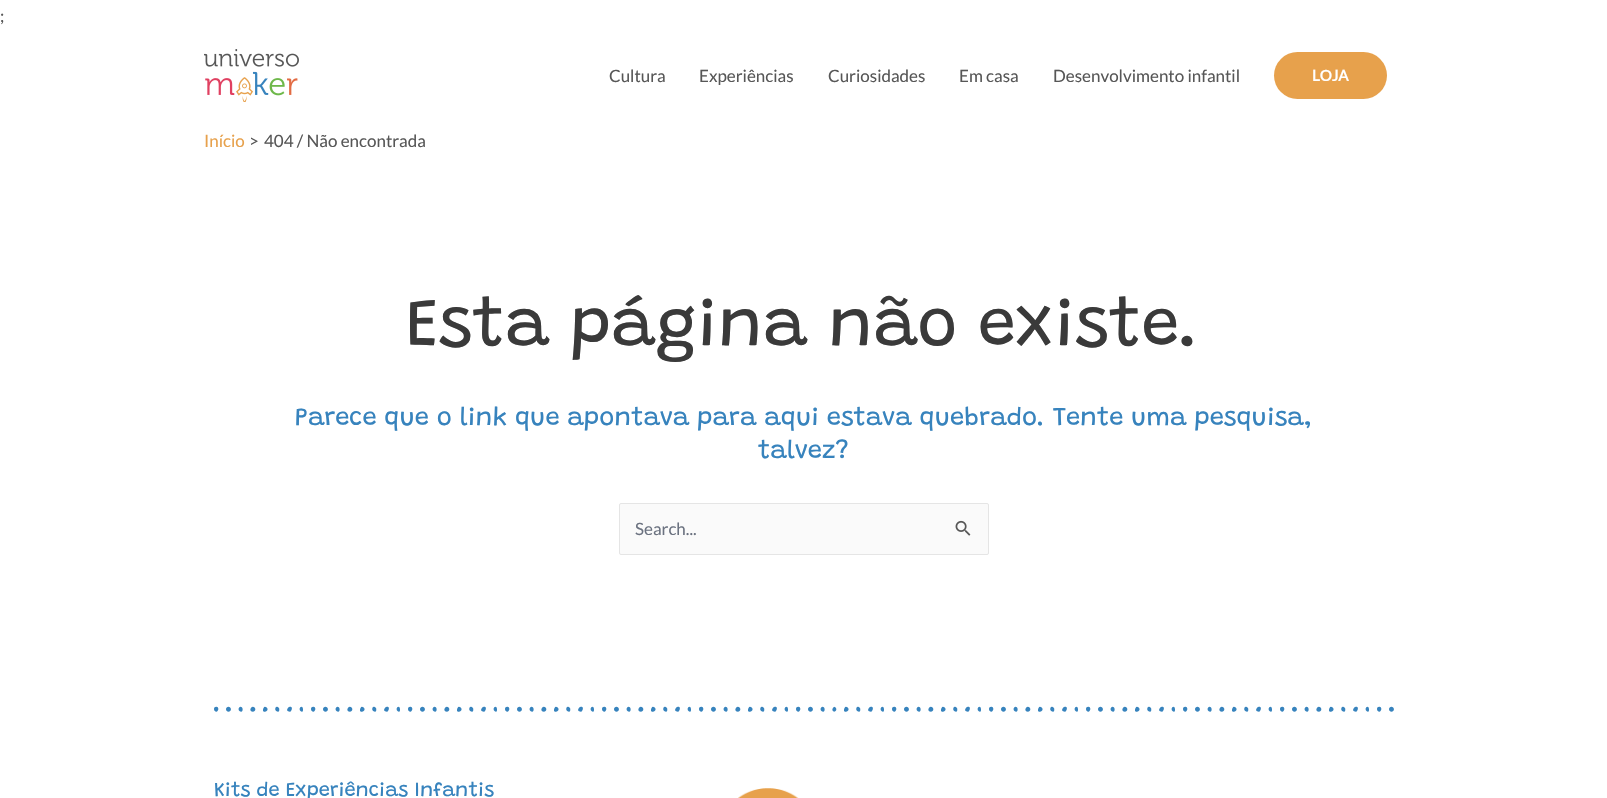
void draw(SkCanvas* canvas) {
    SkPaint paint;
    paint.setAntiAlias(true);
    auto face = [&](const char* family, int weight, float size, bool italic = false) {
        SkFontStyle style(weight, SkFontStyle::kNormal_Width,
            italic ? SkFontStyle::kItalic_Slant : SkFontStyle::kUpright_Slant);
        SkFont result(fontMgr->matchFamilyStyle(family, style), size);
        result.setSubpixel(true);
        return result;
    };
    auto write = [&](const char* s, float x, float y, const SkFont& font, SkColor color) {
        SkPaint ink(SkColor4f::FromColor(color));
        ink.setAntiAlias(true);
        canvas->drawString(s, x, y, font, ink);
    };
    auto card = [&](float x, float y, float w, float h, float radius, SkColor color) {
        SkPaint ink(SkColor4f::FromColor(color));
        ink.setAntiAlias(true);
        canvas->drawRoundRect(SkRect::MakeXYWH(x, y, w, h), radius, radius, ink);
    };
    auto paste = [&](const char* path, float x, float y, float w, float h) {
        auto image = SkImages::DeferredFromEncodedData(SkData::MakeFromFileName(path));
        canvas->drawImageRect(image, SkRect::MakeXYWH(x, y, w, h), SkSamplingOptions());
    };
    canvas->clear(SK_ColorWHITE);
    auto kFont1 = face("Lato", 400, 17);
    write(";", 0, 22, kFont1, SkColorSetRGB(87, 87, 87));
    paste("pic1.png", 204, 49, 95, 53);
    write("Cultura", 609, 82, kFont1, SkColorSetRGB(87, 87, 87));
    write("Experiências", 699, 82, kFont1, SkColorSetRGB(87, 87, 87));
    write("Curiosidades", 828, 82, kFont1, SkColorSetRGB(87, 87, 87));
    write("Em casa", 959, 82, kFont1, SkColorSetRGB(87, 87, 87));
    write("Desenvolvimento infantil", 1053, 82, kFont1, SkColorSetRGB(87, 87, 87));
    card(1274, 52, 113, 47, 23.5f, SkColorSetRGB(231, 161, 76));
    auto kFont2 = face("Lato", 700, 15);
    write("LOJA", 1312, 81, kFont2, SK_ColorWHITE);
    write("Início", 204, 147, kFont1, SkColorSetRGB(231, 161, 76));
    write(">", 249, 147, kFont1, SkColorSetRGB(87, 87, 87));
    write("404 / Não encontrada", 264, 147, kFont1, SkColorSetRGB(87, 87, 87));
    auto kFont3 = face("Grandstander", 100, 68);
    write("Esta página não existe.", 406, 345, kFont3, SkColorSetRGB(58, 58, 58));
    auto kFont4 = face("Grandstander", 100, 25.5f);
    write("Parece que o link que apontava para aqui estava quebrado. Tente uma pesquisa,", 295, 425, kFont4, SkColorSetRGB(55, 131, 189));
    write("talvez?", 758, 458, kFont4, SkColorSetRGB(55, 131, 189));
    paint.setColor(SkColorSetRGB(250, 250, 250));
    canvas->drawRoundRect(SkRect::MakeXYWH(619.5f, 503.5f, 369, 51), 1.5f, 1.5f, paint);
    paint.setStyle(SkPaint::kStroke_Style);
    paint.setStrokeWidth(1);
    paint.setColor(SkColorSetRGB(229, 229, 229));
    canvas->drawRoundRect(SkRect::MakeXYWH(619.5f, 503.5f, 369, 51), 1.5f, 1.5f, paint);
    write("Search...", 635, 535, kFont1, SkColorSetRGB(107, 114, 128));
    paste("pic2.png", 955, 520, 16, 16);
    paste("pic3.png", 214, 706, 1180, 6);
    auto kFont5 = face("Grandstander", 100, 20);
    write("Kits de Experiências Infantis", 214, 796, kFont5, SkColorSetRGB(55, 131, 189));
    paste("pic4.png", 738, 788, 61, 10);
}
